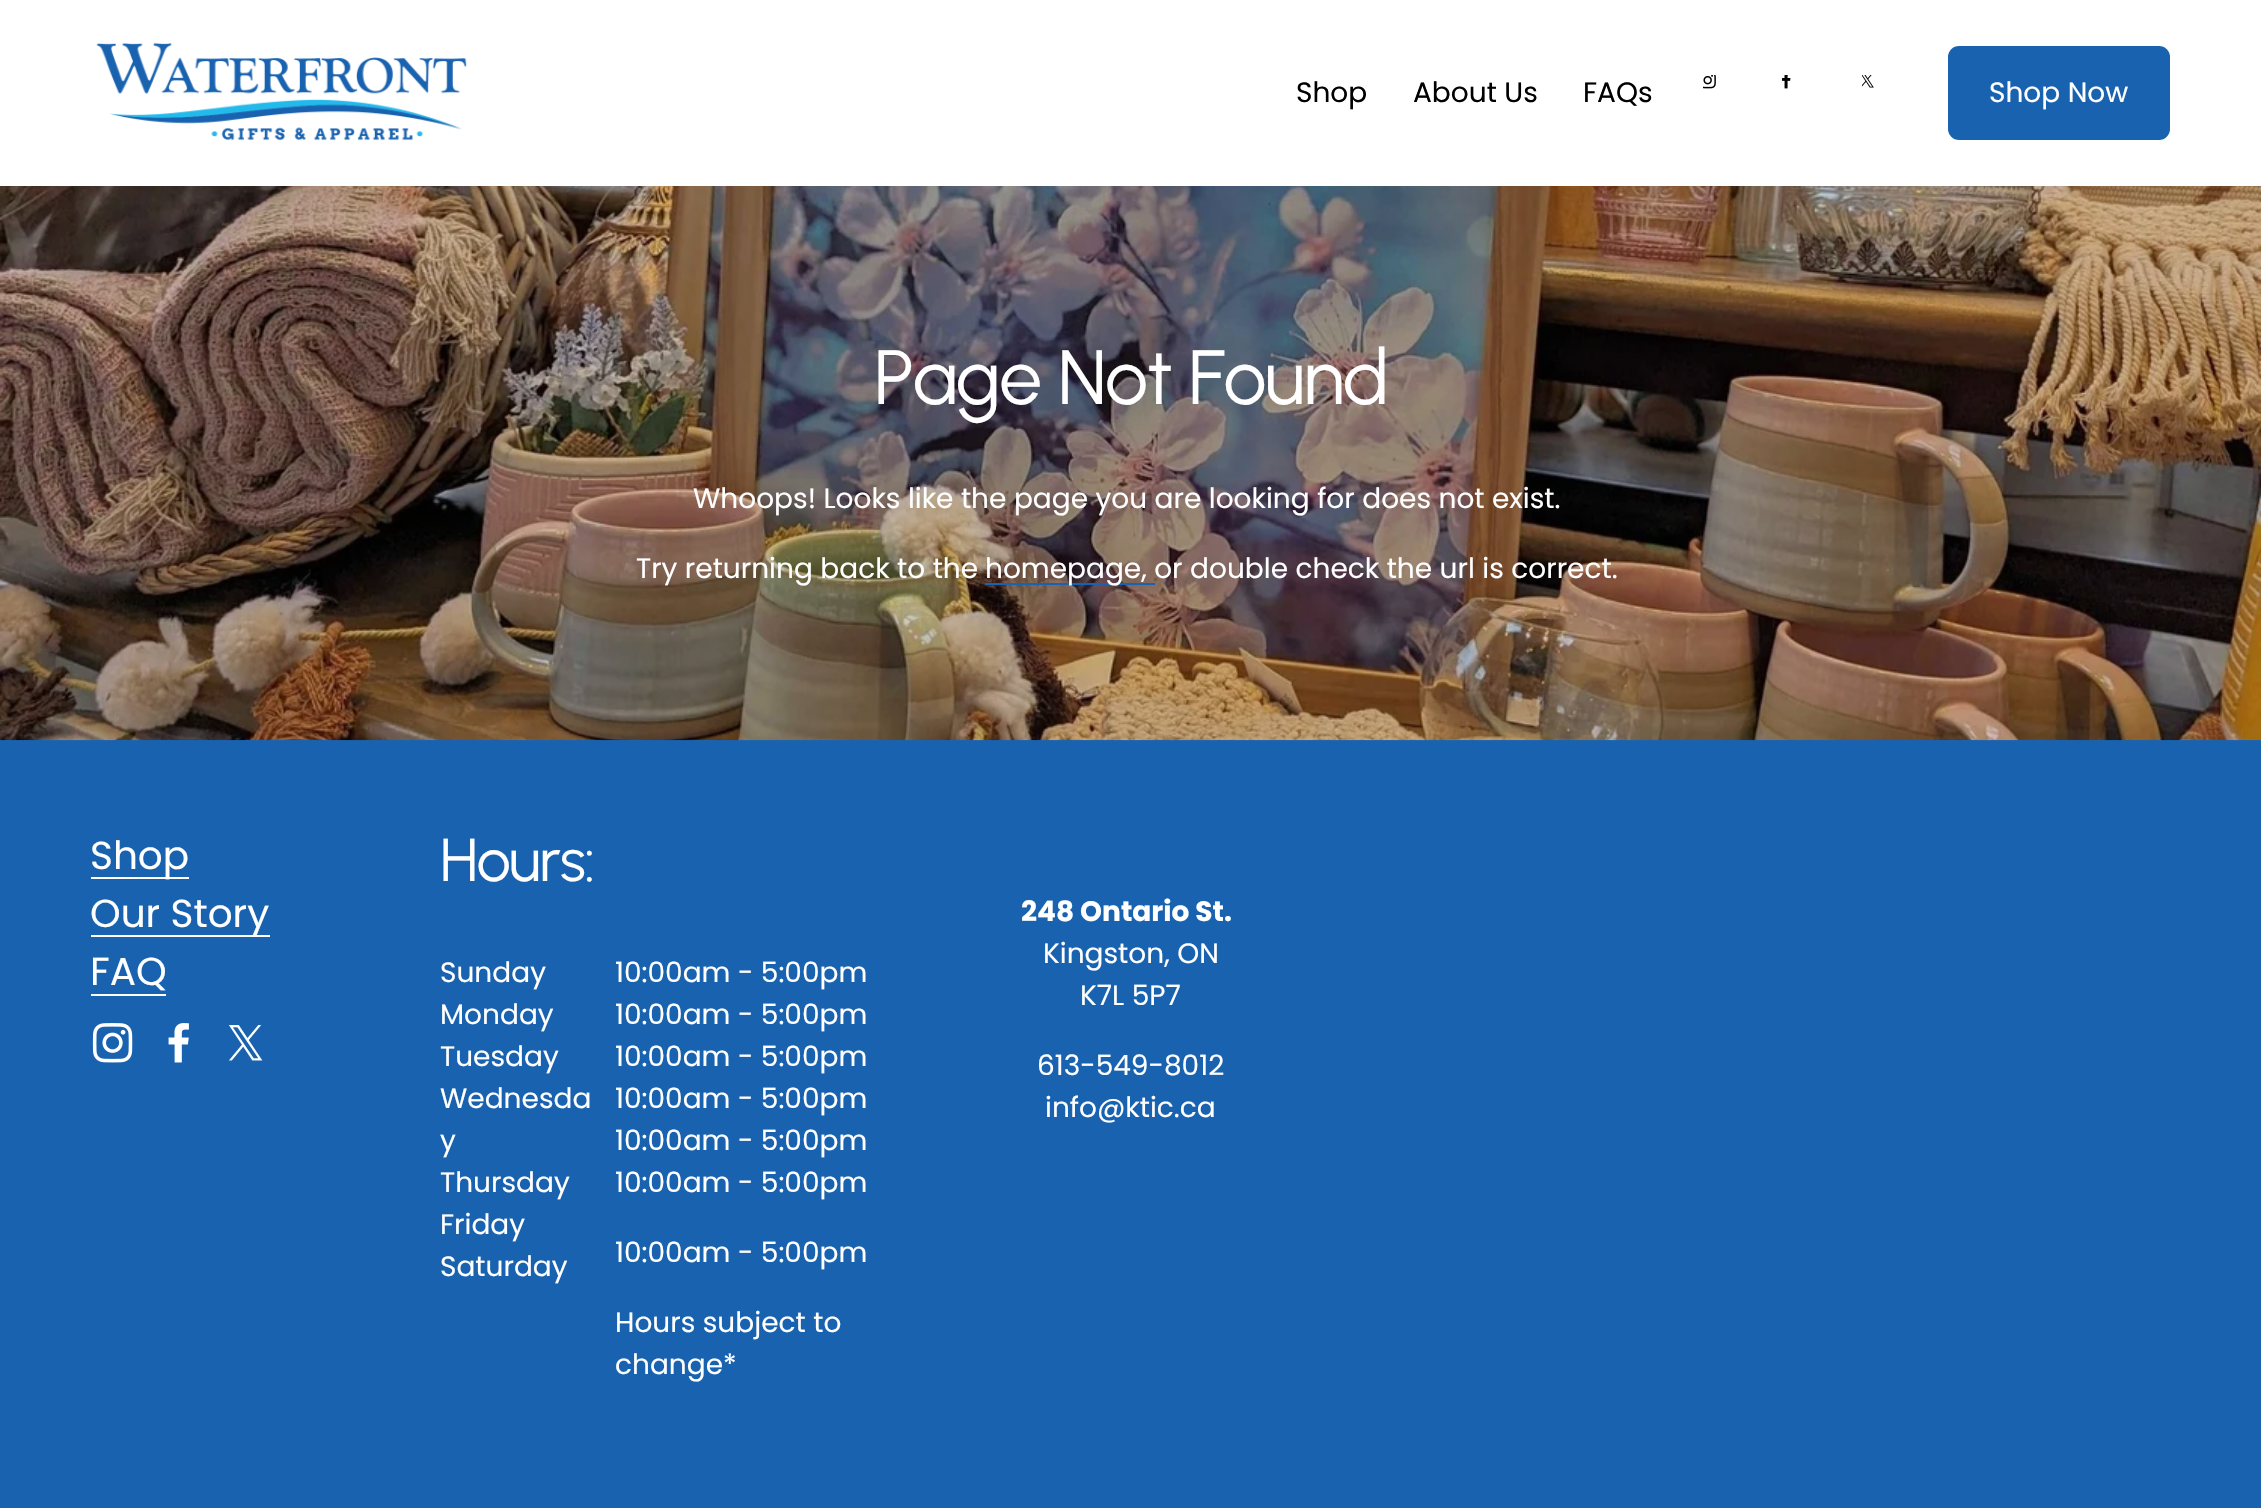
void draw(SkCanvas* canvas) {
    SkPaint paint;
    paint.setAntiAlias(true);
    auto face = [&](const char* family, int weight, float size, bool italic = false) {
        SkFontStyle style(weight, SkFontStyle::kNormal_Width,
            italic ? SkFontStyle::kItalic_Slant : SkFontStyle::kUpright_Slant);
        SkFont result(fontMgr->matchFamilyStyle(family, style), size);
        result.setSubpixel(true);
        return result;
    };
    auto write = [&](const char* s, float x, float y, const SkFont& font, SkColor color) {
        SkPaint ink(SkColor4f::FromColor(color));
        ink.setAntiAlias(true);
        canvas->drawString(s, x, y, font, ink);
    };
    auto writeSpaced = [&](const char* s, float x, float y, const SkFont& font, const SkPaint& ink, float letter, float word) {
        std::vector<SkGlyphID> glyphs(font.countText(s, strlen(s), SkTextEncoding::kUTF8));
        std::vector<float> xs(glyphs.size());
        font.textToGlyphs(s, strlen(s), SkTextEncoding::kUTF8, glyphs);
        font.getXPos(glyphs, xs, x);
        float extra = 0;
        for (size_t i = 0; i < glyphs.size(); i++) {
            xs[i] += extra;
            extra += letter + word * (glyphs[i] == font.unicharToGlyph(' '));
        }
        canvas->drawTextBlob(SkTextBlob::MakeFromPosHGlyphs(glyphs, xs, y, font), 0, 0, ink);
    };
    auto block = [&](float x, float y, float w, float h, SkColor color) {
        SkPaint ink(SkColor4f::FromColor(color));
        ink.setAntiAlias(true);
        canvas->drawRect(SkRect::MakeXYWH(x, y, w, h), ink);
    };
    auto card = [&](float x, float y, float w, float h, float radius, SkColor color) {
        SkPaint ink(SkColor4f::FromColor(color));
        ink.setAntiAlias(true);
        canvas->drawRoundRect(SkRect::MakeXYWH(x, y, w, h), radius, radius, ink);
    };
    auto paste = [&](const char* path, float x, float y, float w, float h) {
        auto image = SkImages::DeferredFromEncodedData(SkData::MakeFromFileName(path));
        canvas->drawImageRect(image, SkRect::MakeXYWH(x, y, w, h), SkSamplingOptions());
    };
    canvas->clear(SkColorSetRGB(24, 98, 175));
    block(0, 0, 2261, 186, SK_ColorWHITE);
    paste("pic1.png", 96, 42, 371, 99);
    auto kFont1 = face("Poppins", 400, 28);
    write("Shop", 1296, 102, kFont1, SK_ColorBLACK);
    write("About Us", 1413, 102, kFont1, SK_ColorBLACK);
    write("FAQs", 1583, 102, kFont1, SK_ColorBLACK);
    paste("pic2.png", 1703, 75, 13, 14);
    paste("pic3.png", 1782, 75, 9, 14);
    paste("pic4.png", 1862, 75, 12, 13);
    card(1948, 46, 222, 94, 11, SkColorSetRGB(24, 98, 175));
    write("Shop Now", 1989, 102, kFont1, SK_ColorWHITE);
    paste("pic5.png", 0, 186, 2261, 555);
    auto kFont2 = face("Urbanist", 400, 76.75f);
    paint.setColor(SK_ColorWHITE);
    writeSpaced("Page Not Found", 874, 404, kFont2, paint, -1.5f, 0);
    write("Whoops! Looks like the page you are looking for does not exist.", 693, 508, kFont1, SK_ColorWHITE);
    write("Try returning back to the", 636, 578, kFont1, SK_ColorWHITE);
    block(985, 583, 161, 2, SkColorSetRGB(24, 98, 175));
    write("homepage, or double check the url is correct.", 985, 578, kFont1, SK_ColorWHITE);
    block(1146, 583, 9, 2, SkColorSetRGB(24, 98, 175));
    block(91, 877, 98, 2, SK_ColorWHITE);
    auto kFont3 = face("Poppins", 400, 39);
    write("Shop", 90, 869, kFont3, SK_ColorWHITE);
    block(91, 935, 179, 2, SK_ColorWHITE);
    write("Our Story", 90, 927, kFont3, SK_ColorWHITE);
    write("FAQ", 90, 985, kFont3, SK_ColorWHITE);
    block(91, 994, 75, 2, SK_ColorWHITE);
    auto kFont4 = face("Urbanist", 400, 60.5f);
    writeSpaced("Hours:", 440, 881, kFont4, paint, -1.25f, 0);
    write("Sunday", 440, 982, kFont1, SK_ColorWHITE);
    write("Monday", 440, 1024, kFont1, SK_ColorWHITE);
    write("Tuesday", 440, 1066, kFont1, SK_ColorWHITE);
    write("Wednesda", 440, 1108, kFont1, SK_ColorWHITE);
    write("y", 440, 1150, kFont1, SK_ColorWHITE);
    write("Thursday", 440, 1192, kFont1, SK_ColorWHITE);
    write("Friday", 440, 1234, kFont1, SK_ColorWHITE);
    write("Saturday", 440, 1276, kFont1, SK_ColorWHITE);
    write("10:00am - 5:00pm", 615, 982, kFont1, SK_ColorWHITE);
    write("10:00am - 5:00pm", 615, 1024, kFont1, SK_ColorWHITE);
    write("10:00am - 5:00pm", 615, 1066, kFont1, SK_ColorWHITE);
    write("10:00am - 5:00pm", 615, 1108, kFont1, SK_ColorWHITE);
    write("10:00am - 5:00pm", 615, 1150, kFont1, SK_ColorWHITE);
    write("10:00am - 5:00pm", 615, 1192, kFont1, SK_ColorWHITE);
    write("10:00am - 5:00pm", 615, 1262, kFont1, SK_ColorWHITE);
    write("Hours subject to", 615, 1332, kFont1, SK_ColorWHITE);
    write("change*", 615, 1374, kFont1, SK_ColorWHITE);
    auto kFont5 = face("Poppins", 700, 28);
    write("248 Ontario St.", 1021, 921, kFont5, SK_ColorWHITE);
    write("Kingston, ON", 1043, 963, kFont1, SK_ColorWHITE);
    write("K7L 5P7", 1080, 1005, kFont1, SK_ColorWHITE);
    write("613-549-8012", 1037, 1075, kFont1, SK_ColorWHITE);
    write("info@ktic.ca", 1045, 1117, kFont1, SK_ColorWHITE);
    paste("pic6.png", 92, 1023, 41, 40);
    paste("pic7.png", 168, 1023, 21, 40);
    paste("pic8.png", 229, 1025, 34, 36);
}
